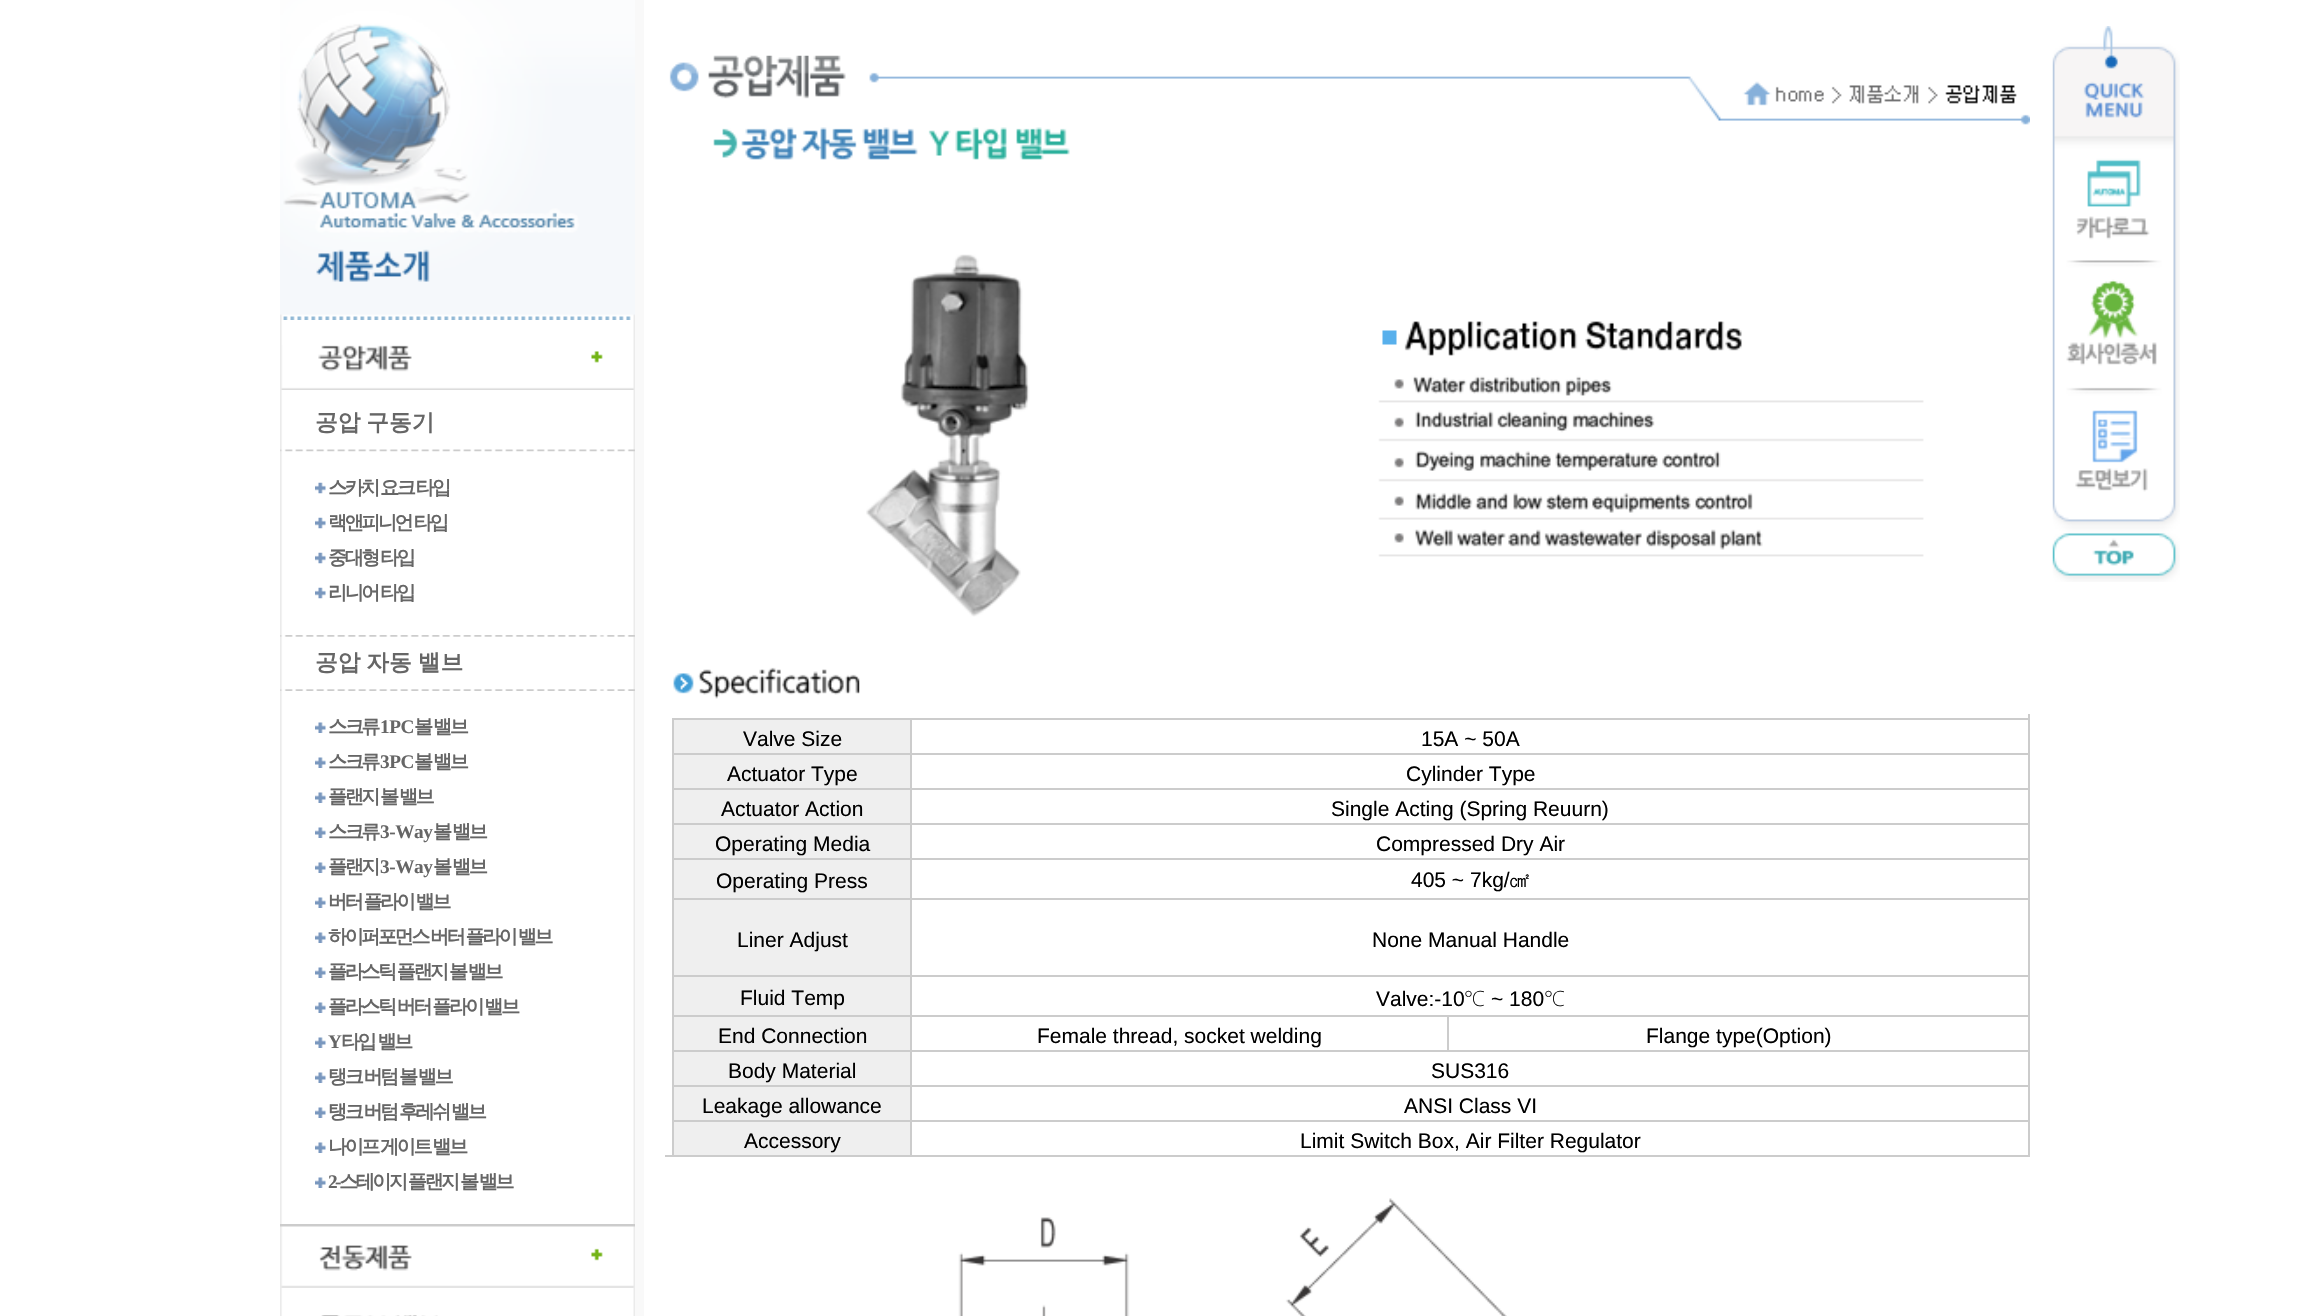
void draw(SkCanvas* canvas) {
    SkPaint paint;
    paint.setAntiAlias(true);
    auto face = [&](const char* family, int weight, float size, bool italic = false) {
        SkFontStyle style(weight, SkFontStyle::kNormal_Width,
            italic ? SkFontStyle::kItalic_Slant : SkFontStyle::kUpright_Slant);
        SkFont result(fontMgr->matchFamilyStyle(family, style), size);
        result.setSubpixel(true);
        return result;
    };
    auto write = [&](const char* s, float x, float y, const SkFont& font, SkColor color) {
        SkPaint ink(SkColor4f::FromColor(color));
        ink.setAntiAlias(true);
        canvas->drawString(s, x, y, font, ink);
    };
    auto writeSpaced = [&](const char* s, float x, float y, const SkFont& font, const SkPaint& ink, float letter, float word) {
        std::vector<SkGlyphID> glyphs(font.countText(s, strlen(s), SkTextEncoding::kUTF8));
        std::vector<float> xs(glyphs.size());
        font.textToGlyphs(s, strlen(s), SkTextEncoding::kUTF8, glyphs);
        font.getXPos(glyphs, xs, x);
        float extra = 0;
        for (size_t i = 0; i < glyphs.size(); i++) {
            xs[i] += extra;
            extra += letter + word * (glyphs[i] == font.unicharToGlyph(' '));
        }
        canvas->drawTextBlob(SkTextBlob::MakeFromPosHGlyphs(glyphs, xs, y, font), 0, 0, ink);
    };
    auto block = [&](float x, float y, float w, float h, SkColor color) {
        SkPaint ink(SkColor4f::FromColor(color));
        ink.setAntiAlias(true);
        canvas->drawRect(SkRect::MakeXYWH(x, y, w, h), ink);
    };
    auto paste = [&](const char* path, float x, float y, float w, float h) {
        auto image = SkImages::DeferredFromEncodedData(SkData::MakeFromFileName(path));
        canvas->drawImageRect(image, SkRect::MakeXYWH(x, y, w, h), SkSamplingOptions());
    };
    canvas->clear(SK_ColorWHITE);
    paste("pic1.png", 2052, 26, 128, 556);
    paste("pic2.png", 280, 320, 355, 996);
    paste("pic3.png", 280, 0, 355, 320);
    paste("pic4.png", 281, 345, 353, 45);
    auto kFont1 = face("WenQuanYi Zen Hei", 700, 22.75f);
    paint.setColor(SkColorSetRGB(102, 102, 102));
    writeSpaced("공압 구동기", 315, 430, kFont1, paint, 0, -1);
    paste("pic5.png", 280, 449, 355, 3);
    paste("pic6.png", 315, 482, 11, 12);
    auto kFont2 = face("WenQuanYi Zen Hei", 700, 19.25f);
    writeSpaced("스카치 요크 타입", 328, 494, kFont2, paint, -2.6f, -1);
    paste("pic6.png", 315, 517, 11, 12);
    writeSpaced("랙앤피니언 타입", 328, 529, kFont2, paint, -2.6f, -1);
    paste("pic6.png", 315, 552, 11, 12);
    writeSpaced("중대형 타입", 328, 564, kFont2, paint, -2.6f, -1);
    paste("pic6.png", 315, 587, 11, 12);
    writeSpaced("리니어 타입", 328, 599, kFont2, paint, -2.6f, -1);
    paste("pic7.png", 280, 635, 355, 2);
    writeSpaced("공압 자동 밸브", 315, 670, kFont1, paint, 0, -1);
    paste("pic8.png", 280, 689, 355, 2);
    paste("pic9.png", 315, 722, 11, 11);
    writeSpaced("스크류", 328, 733, kFont2, paint, -2.6f, 0);
    auto kFont3 = face("Liberation Serif", 700, 19.25f);
    writeSpaced("1 P C", 380, 733, kFont3, paint, -2.6f, 0);
    writeSpaced("볼", 414, 733, kFont2, paint, -2.6f, 0);
    writeSpaced("밸브", 433, 733, kFont2, paint, -2.6f, 0);
    paste("pic9.png", 315, 757, 11, 11);
    writeSpaced("스크류", 328, 768, kFont2, paint, -2.6f, 0);
    writeSpaced("3 P C", 380, 768, kFont3, paint, -2.6f, 0);
    writeSpaced("볼", 414, 768, kFont2, paint, -2.6f, 0);
    writeSpaced("밸브", 433, 768, kFont2, paint, -2.6f, 0);
    paste("pic9.png", 315, 792, 11, 11);
    writeSpaced("플랜지 볼 밸브", 328, 803, kFont2, paint, -2.6f, -1);
    paste("pic9.png", 315, 827, 11, 11);
    writeSpaced("스크류", 328, 838, kFont2, paint, -2.6f, 0);
    writeSpaced("3 - W a y", 380, 838, kFont3, paint, -2.6f, 0);
    writeSpaced("볼", 433, 838, kFont2, paint, -2.6f, 0);
    writeSpaced("밸브", 452, 838, kFont2, paint, -2.6f, 0);
    paste("pic9.png", 315, 862, 11, 11);
    writeSpaced("플랜지", 328, 873, kFont2, paint, -2.6f, 0);
    writeSpaced("3 - W a y", 380, 873, kFont3, paint, -2.6f, 0);
    writeSpaced("볼", 433, 873, kFont2, paint, -2.6f, 0);
    writeSpaced("밸브", 452, 873, kFont2, paint, -2.6f, 0);
    paste("pic9.png", 315, 897, 11, 11);
    writeSpaced("버터 플라이 밸브", 328, 908, kFont2, paint, -2.6f, -1);
    paste("pic9.png", 315, 932, 11, 11);
    writeSpaced("하이퍼포먼스 버터 플라이 밸브", 328, 943, kFont2, paint, -2.6f, -1);
    paste("pic9.png", 315, 967, 11, 11);
    writeSpaced("플라스틱 플랜지 볼 밸브", 328, 978, kFont2, paint, -2.6f, -1);
    paste("pic9.png", 315, 1002, 11, 11);
    writeSpaced("플라스틱 버터 플라이 밸브", 328, 1013, kFont2, paint, -2.6f, -1);
    paste("pic9.png", 315, 1037, 11, 11);
    writeSpaced("Y", 328, 1048, kFont3, paint, -2.6f, 0);
    writeSpaced("타입 밸브", 341, 1048, kFont2, paint, -2.6f, 0);
    paste("pic9.png", 315, 1072, 11, 11);
    writeSpaced("탱크 버텀 볼 밸브", 328, 1083, kFont2, paint, -2.6f, -1);
    paste("pic9.png", 315, 1107, 11, 11);
    writeSpaced("탱크 버텀 후레쉬 밸브", 328, 1118, kFont2, paint, -2.6f, -1);
    paste("pic9.png", 315, 1142, 11, 11);
    writeSpaced("나이프 게이트 밸브", 328, 1153, kFont2, paint, -2.6f, -1);
    paste("pic9.png", 315, 1177, 11, 11);
    writeSpaced("2-", 328, 1188, kFont3, paint, -2.6f, 0);
    writeSpaced("스테이지 플랜지 볼 밸브", 339, 1188, kFont2, paint, -2.6f, -1);
    block(280, 1224, 356, 3, SkColorSetRGB(204, 204, 204));
    paste("pic10.png", 280, 1226, 355, 62);
    paste("pic11.png", 321, 1315, 117, 1);
    block(635, 0, 9, 1316, SkColorSetRGB(249, 249, 249));
    paste("pic12.png", 669, 55, 1361, 105);
    paste("pic13.png", 866, 254, 1058, 363);
    paste("pic14.png", 673, 667, 187, 32);
    block(2028, 714, 2, 443, SkColorSetRGB(204, 204, 204));
    block(665, 1155, 1365, 2, SkColorSetRGB(204, 204, 204));
    block(674, 720, 236, 33, SkColorSetRGB(239, 239, 239));
    block(672, 718, 1356, 2, SkColorSetRGB(204, 204, 204));
    block(672, 718, 2, 35, SkColorSetRGB(204, 204, 204));
    auto kFont4 = face("Liberation Sans", 400, 21);
    write("Valve Size", 743, 746, kFont4, SK_ColorBLACK);
    block(910, 718, 2, 35, SkColorSetRGB(204, 204, 204));
    write("15A ~ 50A", 1421, 746, kFont4, SK_ColorBLACK);
    block(674, 755, 236, 33, SkColorSetRGB(239, 239, 239));
    block(672, 753, 1356, 2, SkColorSetRGB(204, 204, 204));
    block(672, 753, 2, 35, SkColorSetRGB(204, 204, 204));
    write("Actuator Type", 727, 781, kFont4, SK_ColorBLACK);
    block(910, 753, 2, 35, SkColorSetRGB(204, 204, 204));
    write("Cylinder Type", 1406, 781, kFont4, SK_ColorBLACK);
    block(674, 790, 236, 33, SkColorSetRGB(239, 239, 239));
    block(672, 788, 1356, 2, SkColorSetRGB(204, 204, 204));
    block(672, 788, 2, 35, SkColorSetRGB(204, 204, 204));
    write("Actuator Action", 721, 816, kFont4, SK_ColorBLACK);
    block(910, 788, 2, 35, SkColorSetRGB(204, 204, 204));
    write("Single Acting (Spring Reuurn)", 1331, 816, kFont4, SK_ColorBLACK);
    block(674, 825, 236, 33, SkColorSetRGB(239, 239, 239));
    block(672, 823, 1356, 2, SkColorSetRGB(204, 204, 204));
    block(672, 823, 2, 35, SkColorSetRGB(204, 204, 204));
    write("Operating Media", 715, 851, kFont4, SK_ColorBLACK);
    block(910, 823, 2, 35, SkColorSetRGB(204, 204, 204));
    write("Compressed Dry Air", 1376, 851, kFont4, SK_ColorBLACK);
    block(674, 860, 236, 38, SkColorSetRGB(239, 239, 239));
    block(672, 858, 1356, 2, SkColorSetRGB(204, 204, 204));
    block(672, 858, 2, 40, SkColorSetRGB(204, 204, 204));
    write("Operating Press", 716, 888, kFont4, SK_ColorBLACK);
    block(910, 858, 2, 40, SkColorSetRGB(204, 204, 204));
    write("405 ~ 7kg/", 1411, 887, kFont4, SK_ColorBLACK);
    auto kFont5 = face("WenQuanYi Zen Hei", 500, 21);
    write("㎠", 1509, 887, kFont5, SK_ColorBLACK);
    block(674, 900, 236, 75, SkColorSetRGB(239, 239, 239));
    block(672, 898, 1356, 2, SkColorSetRGB(204, 204, 204));
    block(672, 898, 2, 77, SkColorSetRGB(204, 204, 204));
    write("Liner Adjust", 737, 947, kFont4, SK_ColorBLACK);
    block(910, 898, 2, 77, SkColorSetRGB(204, 204, 204));
    write("None Manual Handle", 1372, 947, kFont4, SK_ColorBLACK);
    block(674, 977, 236, 38, SkColorSetRGB(239, 239, 239));
    block(672, 975, 1356, 2, SkColorSetRGB(204, 204, 204));
    block(672, 975, 2, 40, SkColorSetRGB(204, 204, 204));
    write("Fluid Temp", 740, 1005, kFont4, SK_ColorBLACK);
    block(910, 975, 2, 40, SkColorSetRGB(204, 204, 204));
    write("Valve:-10", 1376, 1006, kFont4, SK_ColorBLACK);
    auto kFont6 = face("Noto Sans", 200, 21);
    write("℃", 1464, 1006, kFont6, SK_ColorBLACK);
    write("~ 180", 1491, 1006, kFont4, SK_ColorBLACK);
    write("℃", 1544, 1006, kFont6, SK_ColorBLACK);
    block(674, 1017, 236, 33, SkColorSetRGB(239, 239, 239));
    block(672, 1015, 1356, 2, SkColorSetRGB(204, 204, 204));
    block(672, 1015, 2, 35, SkColorSetRGB(204, 204, 204));
    write("End Connection", 718, 1043, kFont4, SK_ColorBLACK);
    block(910, 1015, 2, 35, SkColorSetRGB(204, 204, 204));
    write("Female thread, socket welding", 1037, 1043, kFont4, SK_ColorBLACK);
    block(1447, 1015, 2, 35, SkColorSetRGB(204, 204, 204));
    write("Flange type(Option)", 1646, 1043, kFont4, SK_ColorBLACK);
    block(674, 1052, 236, 33, SkColorSetRGB(239, 239, 239));
    block(672, 1050, 1356, 2, SkColorSetRGB(204, 204, 204));
    block(672, 1050, 2, 35, SkColorSetRGB(204, 204, 204));
    write("Body Material", 728, 1078, kFont4, SK_ColorBLACK);
    block(910, 1050, 2, 35, SkColorSetRGB(204, 204, 204));
    write("SUS316", 1431, 1078, kFont4, SK_ColorBLACK);
    block(674, 1087, 236, 33, SkColorSetRGB(239, 239, 239));
    block(672, 1085, 1356, 2, SkColorSetRGB(204, 204, 204));
    block(672, 1085, 2, 35, SkColorSetRGB(204, 204, 204));
    write("Leakage allowance", 702, 1113, kFont4, SK_ColorBLACK);
    block(910, 1085, 2, 35, SkColorSetRGB(204, 204, 204));
    write("ANSI Class VI", 1404, 1113, kFont4, SK_ColorBLACK);
    block(674, 1122, 236, 33, SkColorSetRGB(239, 239, 239));
    block(672, 1120, 1356, 2, SkColorSetRGB(204, 204, 204));
    block(672, 1120, 2, 35, SkColorSetRGB(204, 204, 204));
    write("Accessory", 744, 1148, kFont4, SK_ColorBLACK);
    block(910, 1120, 2, 35, SkColorSetRGB(204, 204, 204));
    write("Limit Switch Box, Air Filter Regulator", 1300, 1148, kFont4, SK_ColorBLACK);
    paste("pic15.png", 958, 1198, 549, 118);
}
